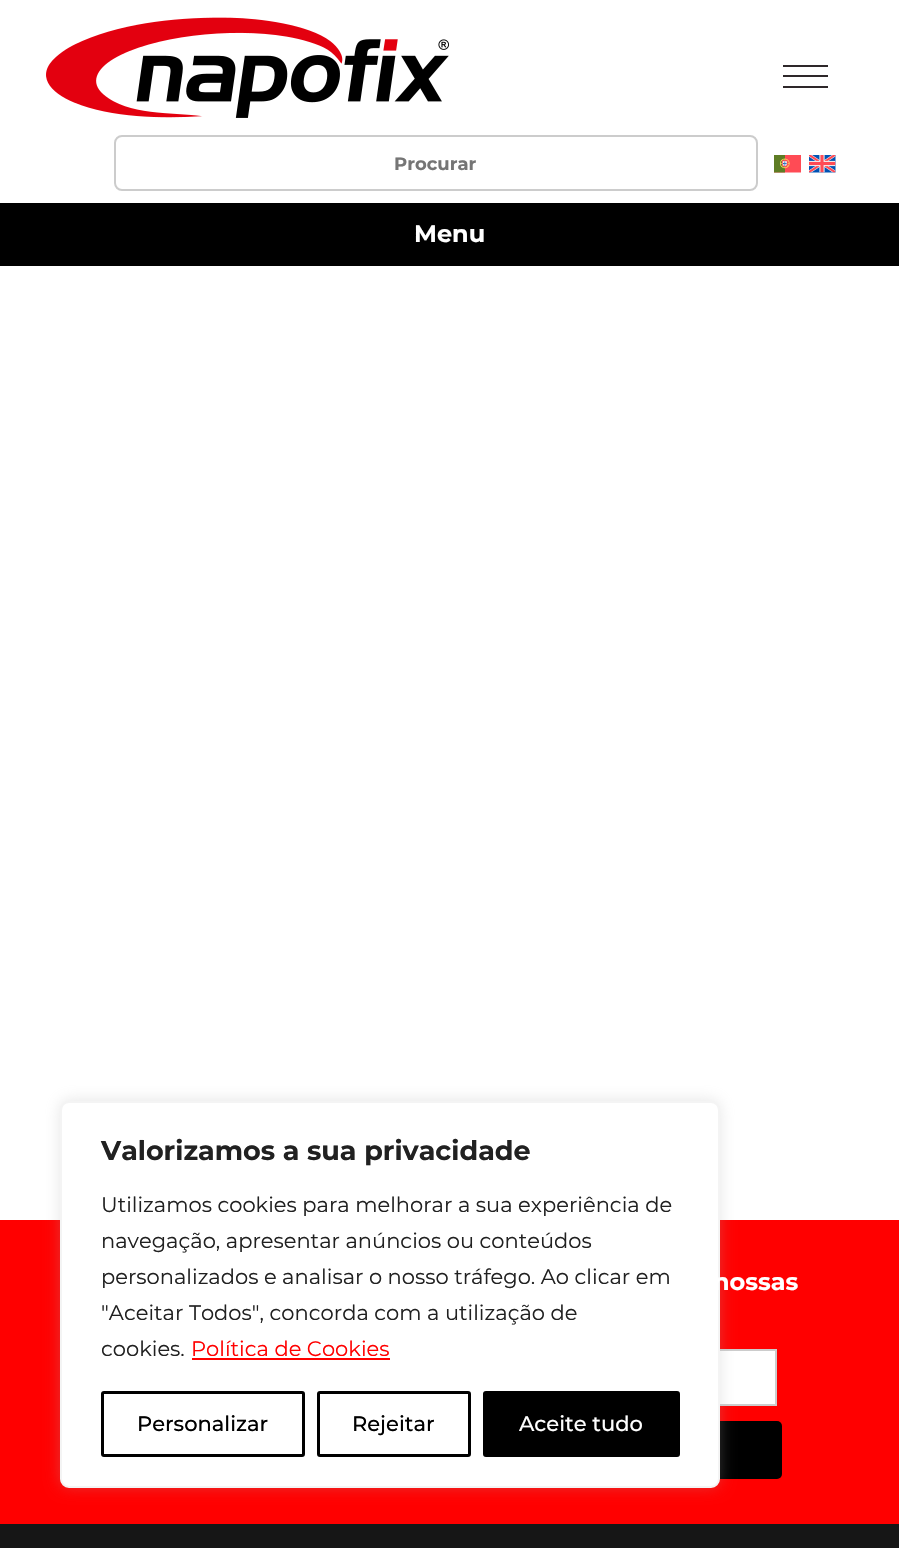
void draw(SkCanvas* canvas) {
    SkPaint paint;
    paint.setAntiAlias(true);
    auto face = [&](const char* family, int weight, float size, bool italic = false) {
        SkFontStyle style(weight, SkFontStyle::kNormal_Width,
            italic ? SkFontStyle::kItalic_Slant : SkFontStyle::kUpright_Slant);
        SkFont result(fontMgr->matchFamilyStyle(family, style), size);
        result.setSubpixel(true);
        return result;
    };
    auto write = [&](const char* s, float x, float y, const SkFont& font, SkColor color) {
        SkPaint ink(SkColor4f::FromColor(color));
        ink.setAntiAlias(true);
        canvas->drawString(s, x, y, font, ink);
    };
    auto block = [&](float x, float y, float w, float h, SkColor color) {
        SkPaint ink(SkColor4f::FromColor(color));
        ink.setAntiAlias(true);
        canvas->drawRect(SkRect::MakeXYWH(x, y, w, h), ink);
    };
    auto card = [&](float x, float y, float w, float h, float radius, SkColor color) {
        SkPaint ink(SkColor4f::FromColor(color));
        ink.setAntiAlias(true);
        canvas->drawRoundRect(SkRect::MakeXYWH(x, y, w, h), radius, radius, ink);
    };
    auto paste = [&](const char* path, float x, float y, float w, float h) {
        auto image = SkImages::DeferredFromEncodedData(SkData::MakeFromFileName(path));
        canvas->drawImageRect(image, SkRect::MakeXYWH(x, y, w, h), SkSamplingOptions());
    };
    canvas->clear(SK_ColorWHITE);
    block(783, 65, 45, 2, SkColorSetRGB(46, 40, 42));
    block(783, 75, 45, 2, SkColorSetRGB(46, 40, 42));
    block(783, 86, 45, 2, SkColorSetRGB(46, 40, 42));
    paste("pic1.png", 46, 17, 403, 101);
    paint.setStyle(SkPaint::kStroke_Style);
    paint.setStrokeWidth(2);
    paint.setColor(SkColorSetRGB(204, 204, 204));
    canvas->drawRoundRect(SkRect::MakeXYWH(115, 136, 642, 54), 7, 7, paint);
    auto kFont1 = face("Montserrat", 100, 18);
    write("Procurar", 394, 170, kFont1, SkColorSetRGB(117, 117, 117));
    paste("pic2.png", 774, 155, 27, 18);
    paste("pic3.png", 809, 155, 27, 18);
    block(0, 203, 899, 63, SK_ColorBLACK);
    auto kFont2 = face("Montserrat", 100, 24);
    write("Menu", 414, 242, kFont2, SK_ColorWHITE);
    block(0, 1220, 899, 304, SkColorSetRGB(255, 0, 0));
    block(720, 1351, 55, 53, SK_ColorWHITE);
    canvas->drawRect(SkRect::MakeXYWH(127, 1350, 649, 55), paint);
    card(126, 1421, 656, 58, 5, SK_ColorBLACK);
    paint.setStyle(SkPaint::kFill_Style);
    paint.setColor(SkColorSetARGB(77, 172, 171, 171));
    paint.setMaskFilter(SkMaskFilter::MakeBlur(kNormal_SkBlurStyle, 7.5f));
    canvas->drawRoundRect(SkRect::MakeXYWH(60, 1100, 660, 387), 9, 9, paint);
    paint.setMaskFilter(nullptr);
    paint.setColor(SK_ColorWHITE);
    canvas->drawRoundRect(SkRect::MakeXYWH(61, 1102, 658, 385), 8, 8, paint);
    paint.setStyle(SkPaint::kStroke_Style);
    paint.setColor(SkColorSetRGB(244, 244, 244));
    canvas->drawRoundRect(SkRect::MakeXYWH(61, 1102, 658, 385), 8, 8, paint);
    auto kFont3 = face("Montserrat", 100, 27);
    write("Valorizamos a sua privacidade", 101, 1160, kFont3, SkColorSetRGB(33, 33, 33));
    auto kFont4 = face("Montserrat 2", 100, 21);
    write("Utilizamos cookies para melhorar a sua experiência de", 101, 1212, kFont4, SkColorSetRGB(33, 33, 33));
    write("navegação, apresentar anúncios ou conteúdos", 101, 1248, kFont4, SkColorSetRGB(33, 33, 33));
    write("personalizados e analisar o nosso tráfego. Ao clicar em", 101, 1284, kFont4, SkColorSetRGB(33, 33, 33));
    write("\"Aceitar Todos\", concorda com a utilização de", 101, 1320, kFont4, SkColorSetRGB(33, 33, 33));
    write("cookies.", 101, 1356, kFont4, SkColorSetRGB(33, 33, 33));
    write("Política de Cookies", 191, 1356, kFont4, SkColorSetRGB(255, 0, 0));
    block(192, 1358, 198, 2, SkColorSetRGB(255, 0, 0));
    paint.setStrokeWidth(3);
    paint.setColor(SK_ColorBLACK);
    canvas->drawRoundRect(SkRect::MakeXYWH(102.5f, 1392.5f, 201, 63), 1.5f, 1.5f, paint);
    auto kFont5 = face("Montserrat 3", 100, 21);
    write("Personalizar", 137, 1431, kFont5, SK_ColorBLACK);
    canvas->drawRoundRect(SkRect::MakeXYWH(318.5f, 1392.5f, 151, 63), 1.5f, 1.5f, paint);
    write("Rejeitar", 352, 1431, kFont5, SK_ColorBLACK);
    paint.setStyle(SkPaint::kFill_Style);
    canvas->drawRoundRect(SkRect::MakeXYWH(484.5f, 1392.5f, 194, 63), 1.5f, 1.5f, paint);
    paint.setStyle(SkPaint::kStroke_Style);
    canvas->drawRoundRect(SkRect::MakeXYWH(484.5f, 1392.5f, 194, 63), 1.5f, 1.5f, paint);
    write("Aceite tudo", 519, 1431, kFont5, SK_ColorWHITE);
    write("nossas", 713, 1290, kFont2, SK_ColorWHITE);
    block(0, 1524, 899, 24, SkColorSetRGB(22, 22, 22));
}
